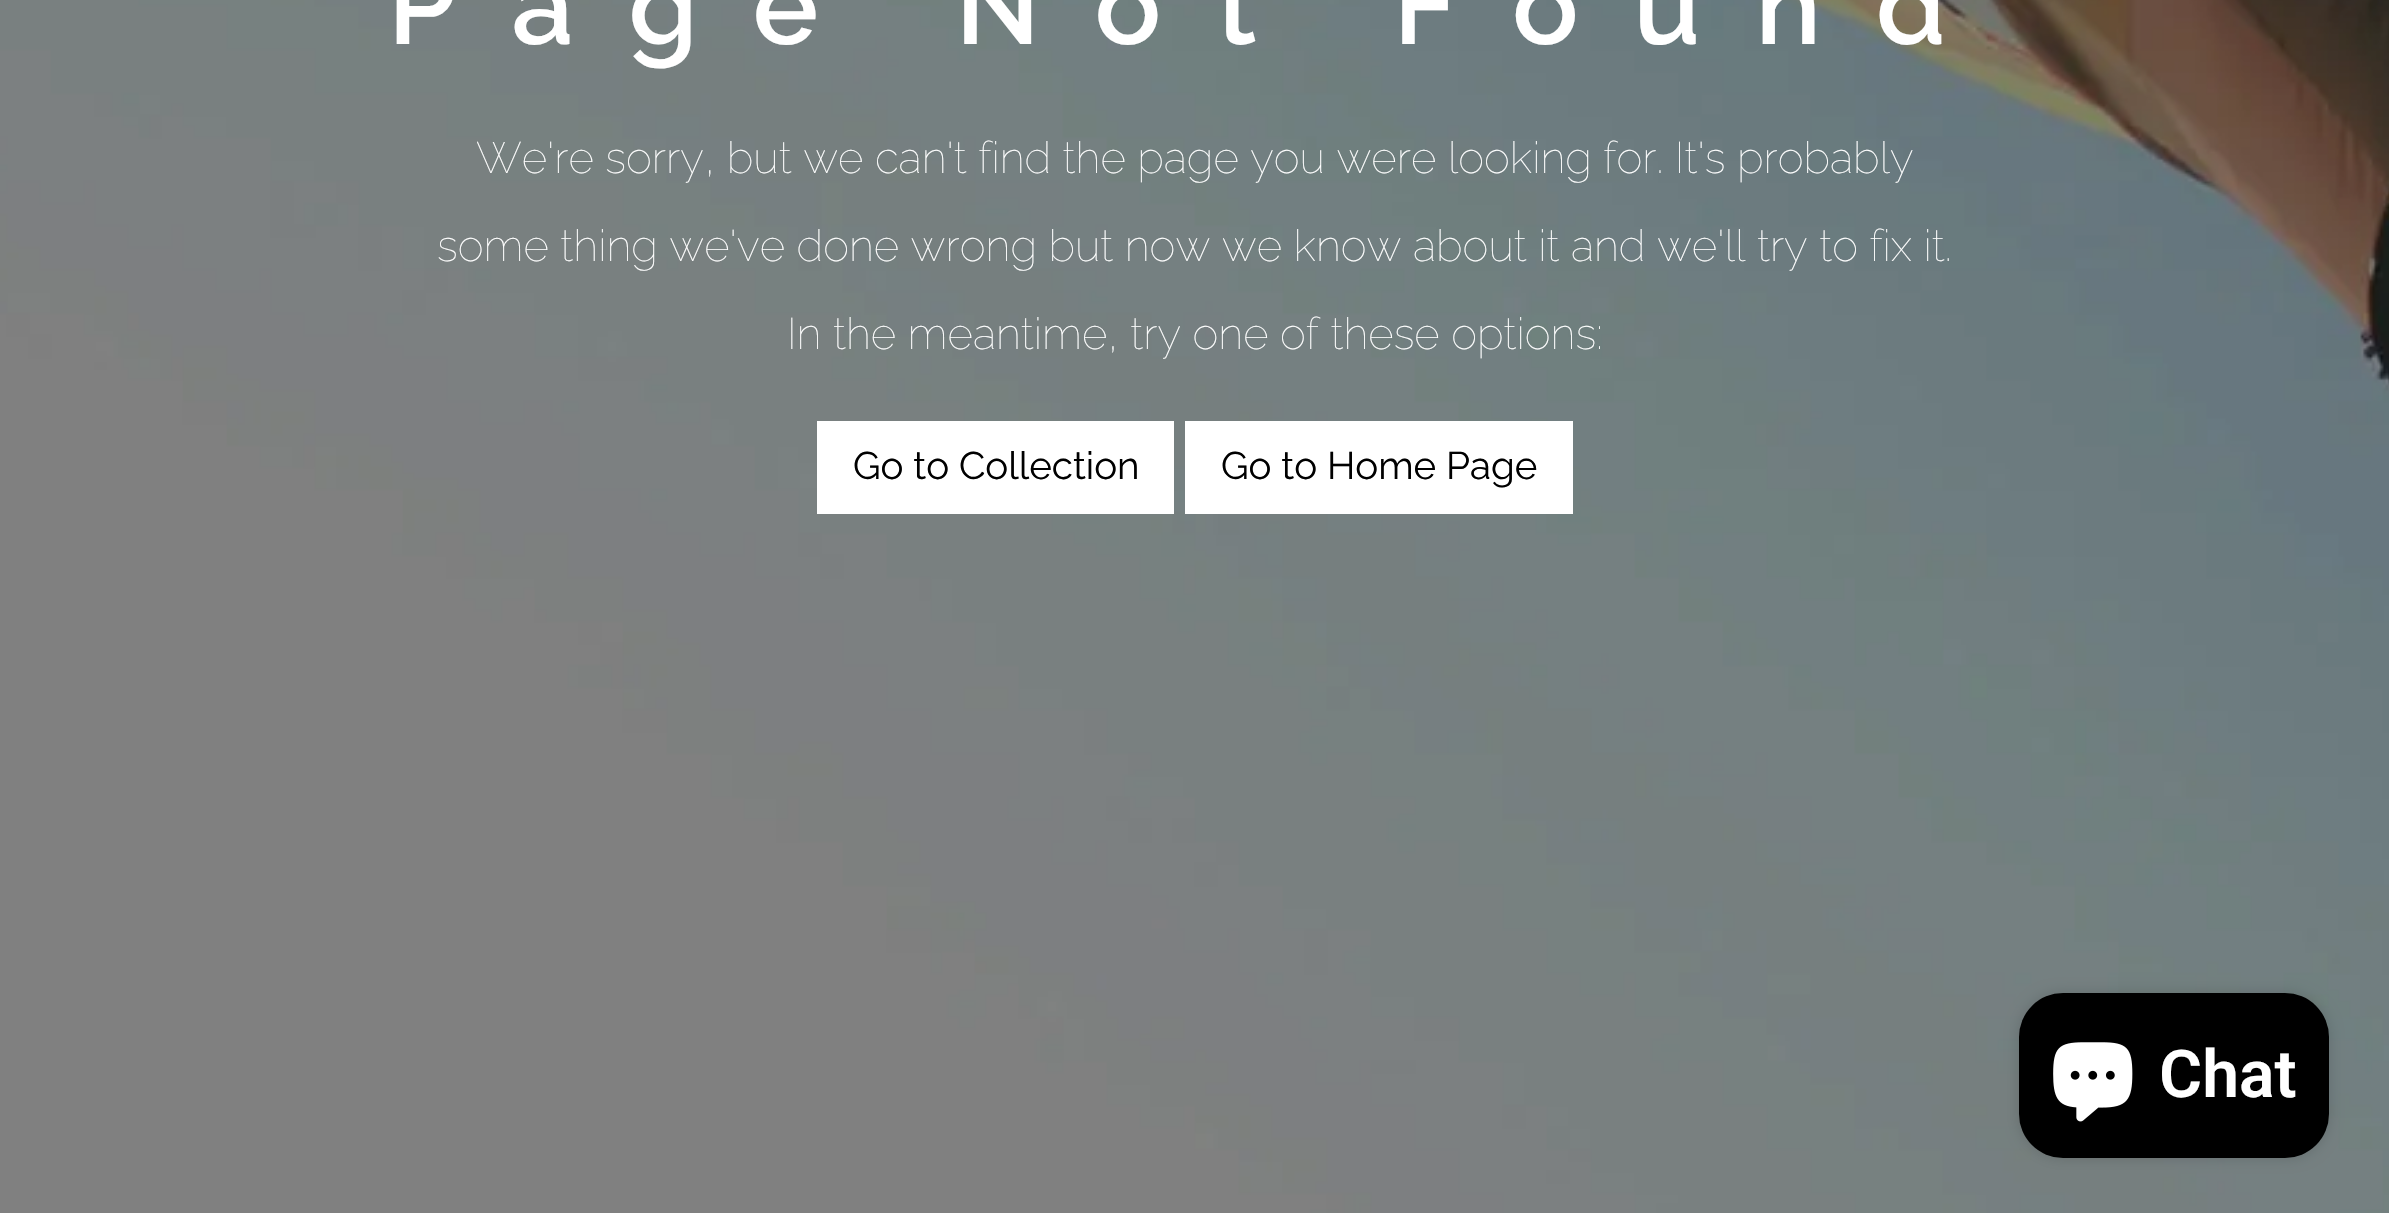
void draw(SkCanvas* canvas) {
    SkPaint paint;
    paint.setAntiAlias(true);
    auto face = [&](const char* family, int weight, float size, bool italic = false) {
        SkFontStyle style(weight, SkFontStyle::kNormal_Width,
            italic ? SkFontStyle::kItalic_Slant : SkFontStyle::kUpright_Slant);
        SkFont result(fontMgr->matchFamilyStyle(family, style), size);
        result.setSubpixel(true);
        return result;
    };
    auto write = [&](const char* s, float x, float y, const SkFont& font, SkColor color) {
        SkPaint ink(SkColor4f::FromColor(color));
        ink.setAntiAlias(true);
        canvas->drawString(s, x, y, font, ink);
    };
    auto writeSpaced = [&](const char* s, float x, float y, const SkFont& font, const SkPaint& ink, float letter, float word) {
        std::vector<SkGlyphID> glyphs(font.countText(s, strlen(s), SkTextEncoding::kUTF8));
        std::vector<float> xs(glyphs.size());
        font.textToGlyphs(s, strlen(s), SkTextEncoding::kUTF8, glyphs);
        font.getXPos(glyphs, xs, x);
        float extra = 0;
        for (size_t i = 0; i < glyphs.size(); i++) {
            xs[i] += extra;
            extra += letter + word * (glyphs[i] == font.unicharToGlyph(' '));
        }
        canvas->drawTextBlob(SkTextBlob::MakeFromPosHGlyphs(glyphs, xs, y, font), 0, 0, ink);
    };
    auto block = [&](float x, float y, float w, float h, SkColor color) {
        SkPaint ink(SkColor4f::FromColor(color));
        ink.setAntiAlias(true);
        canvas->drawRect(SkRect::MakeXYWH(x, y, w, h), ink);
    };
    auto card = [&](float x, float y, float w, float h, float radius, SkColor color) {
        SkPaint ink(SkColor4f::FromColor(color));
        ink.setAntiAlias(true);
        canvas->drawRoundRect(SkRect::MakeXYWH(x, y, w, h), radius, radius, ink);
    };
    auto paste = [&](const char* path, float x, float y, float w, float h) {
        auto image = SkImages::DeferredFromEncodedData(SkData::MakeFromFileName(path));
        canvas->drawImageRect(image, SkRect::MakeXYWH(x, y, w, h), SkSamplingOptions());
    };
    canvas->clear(SK_ColorWHITE);
    paste("pic1.png", 0, 0, 2389, 1213);
    auto kFont1 = face("Raleway", 600, 110);
    paint.setColor(SK_ColorWHITE);
    writeSpaced("Page Not Found", 388, 44, kFont1, paint, 55, 0);
    auto kFont2 = face("Raleway", 100, 44);
    write("We're sorry, but we can't find the page you were looking for. It's probably", 476, 173, kFont2, SK_ColorWHITE);
    write("some thing we've done wrong but now we know about it and we'll try to fix it.", 437, 261, kFont2, SK_ColorWHITE);
    write("In the meantime, try one of these options:", 787, 349, kFont2, SK_ColorWHITE);
    block(817, 421, 357, 93, SK_ColorWHITE);
    auto kFont3 = face("Raleway", 400, 38.5f);
    write("Go to Collection", 853, 479, kFont3, SK_ColorBLACK);
    block(1185, 421, 388, 93, SK_ColorWHITE);
    write("Go to Home Page", 1221, 479, kFont3, SK_ColorBLACK);
    paint.setColor(SkColorSetARGB(38, 0, 0, 0));
    paint.setMaskFilter(SkMaskFilter::MakeBlur(kNormal_SkBlurStyle, 7));
    canvas->drawRoundRect(SkRect::MakeXYWH(2019, 993, 310, 165), 44, 44, paint);
    paint.setMaskFilter(nullptr);
    card(2019, 993, 310, 165, 44, SK_ColorBLACK);
    paste("pic2.png", 2053, 1042, 80, 80);
    auto kFont4 = face("Roboto", 600, 66);
    write("Chat", 2159, 1097, kFont4, SK_ColorWHITE);
}
